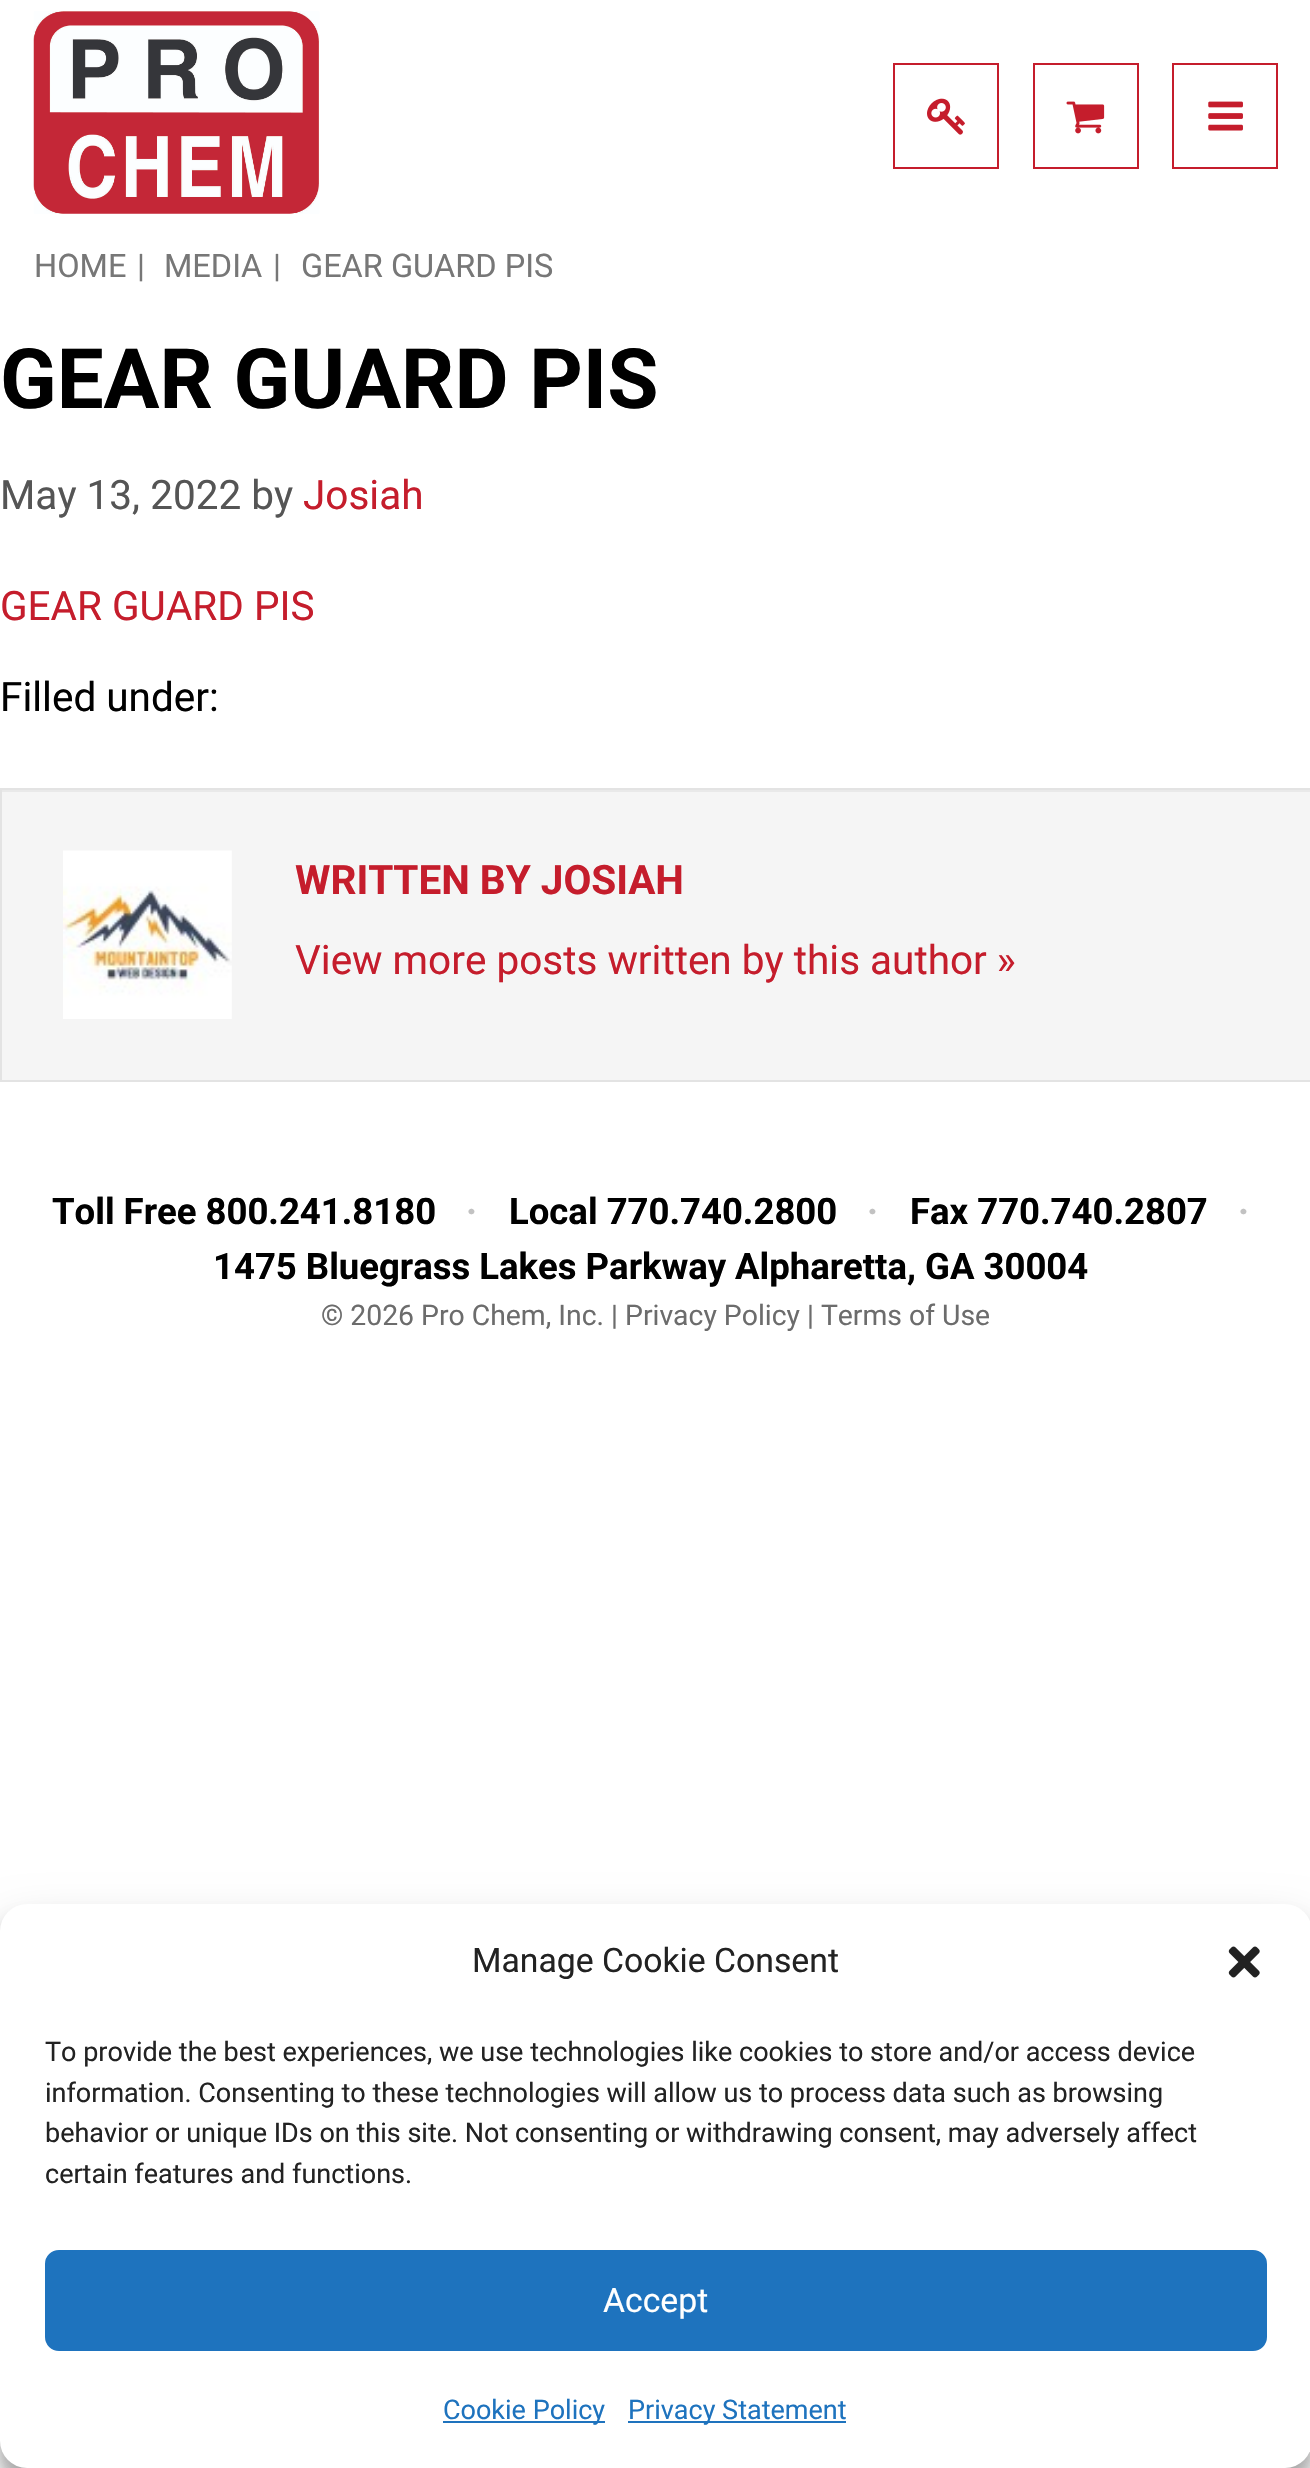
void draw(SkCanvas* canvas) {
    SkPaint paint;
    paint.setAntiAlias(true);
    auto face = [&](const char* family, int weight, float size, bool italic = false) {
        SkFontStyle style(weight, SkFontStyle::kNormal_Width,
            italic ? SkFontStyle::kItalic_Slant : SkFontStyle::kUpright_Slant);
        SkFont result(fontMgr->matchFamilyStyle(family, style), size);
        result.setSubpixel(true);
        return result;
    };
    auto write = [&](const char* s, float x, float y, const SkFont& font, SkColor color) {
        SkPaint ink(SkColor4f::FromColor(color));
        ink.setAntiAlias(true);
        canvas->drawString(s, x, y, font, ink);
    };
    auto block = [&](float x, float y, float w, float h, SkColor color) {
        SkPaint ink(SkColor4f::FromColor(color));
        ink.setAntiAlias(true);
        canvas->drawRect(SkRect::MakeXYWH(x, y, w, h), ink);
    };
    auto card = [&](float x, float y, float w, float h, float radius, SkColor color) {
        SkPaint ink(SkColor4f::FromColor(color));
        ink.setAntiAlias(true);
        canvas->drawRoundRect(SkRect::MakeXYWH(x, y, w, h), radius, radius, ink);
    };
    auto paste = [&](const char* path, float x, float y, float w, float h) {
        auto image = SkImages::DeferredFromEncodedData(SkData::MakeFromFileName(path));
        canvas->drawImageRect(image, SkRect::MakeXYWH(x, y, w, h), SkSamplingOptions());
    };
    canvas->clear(SK_ColorWHITE);
    paste("pic1.png", 33, 11, 287, 203);
    paint.setStyle(SkPaint::kStroke_Style);
    paint.setStrokeWidth(2);
    paint.setColor(SkColorSetRGB(197, 29, 44));
    canvas->drawRect(SkRect::MakeXYWH(894, 64, 104, 104), paint);
    paste("pic2.png", 927, 98, 38, 37);
    canvas->drawRect(SkRect::MakeXYWH(1034, 64, 104, 104), paint);
    paste("pic3.png", 1066, 101, 39, 33);
    canvas->drawRect(SkRect::MakeXYWH(1173, 64, 104, 104), paint);
    paste("pic4.png", 1208, 101, 35, 30);
    auto kFont1 = face("Roboto", 400, 32.5f);
    write("HOME", 34, 277, kFont1, SkColorSetRGB(119, 119, 119));
    write("|", 137, 277, kFont1, SkColorSetRGB(119, 119, 119));
    write("MEDIA", 164, 277, kFont1, SkColorSetRGB(119, 119, 119));
    write("|", 273, 277, kFont1, SkColorSetRGB(119, 119, 119));
    write("GEAR GUARD PIS", 301, 277, kFont1, SkColorSetRGB(119, 119, 119));
    auto kFont2 = face("Roboto", 700, 83.25f);
    write("GEAR GUARD PIS", 0, 408, kFont2, SK_ColorBLACK);
    auto kFont3 = face("Roboto", 400, 40.5f);
    write("May 13, 2022 by", 0, 509, kFont3, SkColorSetRGB(85, 85, 85));
    write("Josiah", 303, 509, kFont3, SkColorSetRGB(197, 29, 44));
    write("GEAR GUARD PIS", 0, 620, kFont3, SkColorSetRGB(197, 29, 44));
    write("Filled under:", 0, 711, kFont3, SK_ColorBLACK);
    block(2, 792, 1308, 288, SkColorSetRGB(245, 245, 245));
    block(2, 790, 1308, 2, SkColorSetRGB(233, 233, 233));
    paint.setColor(SkColorSetRGB(227, 227, 227));
    canvas->drawRect(SkRect::MakeXYWH(1, 789, 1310, 292), paint);
    paste("pic5.png", 63, 850, 169, 169);
    auto kFont4 = face("Roboto", 700, 40.5f);
    write("WRITTEN BY JOSIAH", 295, 894, kFont4, SkColorSetRGB(197, 29, 44));
    write("View more posts written by this author »", 295, 974, kFont3, SkColorSetRGB(197, 29, 44));
    auto kFont5 = face("Roboto", 700, 36.5f);
    write("Toll Free 800.241.8180", 52, 1224, kFont5, SK_ColorBLACK);
    write("·", 466, 1224, kFont5, SkColorSetRGB(194, 194, 194));
    write("Local 770.740.2800", 509, 1224, kFont5, SK_ColorBLACK);
    write("·", 867, 1224, kFont5, SkColorSetRGB(194, 194, 194));
    write("Fax 770.740.2807", 910, 1224, kFont5, SK_ColorBLACK);
    write("·", 1238, 1224, kFont5, SkColorSetRGB(194, 194, 194));
    write("1475 Bluegrass Lakes Parkway", 213, 1279, kFont5, SK_ColorBLACK);
    write("Alpharetta, GA 30004", 735, 1279, kFont5, SK_ColorBLACK);
    auto kFont6 = face("Roboto", 400, 28.35f);
    write("© 2026 Pro Chem, Inc. | Privacy Policy | Terms of Use", 321, 1325, kFont6, SkColorSetRGB(108, 108, 108));
    paint.setStyle(SkPaint::kFill_Style);
    paint.setColor(SkColorSetARGB(59, 0, 0, 0));
    paint.setMaskFilter(SkMaskFilter::MakeBlur(kNormal_SkBlurStyle, 7));
    canvas->drawRoundRect(SkRect::MakeXYWH(0, 1917, 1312, 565), 27, 27, paint);
    paint.setMaskFilter(nullptr);
    paint.setColor(SkColorSetARGB(48, 0, 0, 0));
    paint.setMaskFilter(SkMaskFilter::MakeBlur(kNormal_SkBlurStyle, 22.5f));
    canvas->drawRoundRect(SkRect::MakeXYWH(0, 1926, 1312, 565), 27, 27, paint);
    paint.setMaskFilter(nullptr);
    card(0, 1904, 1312, 564, 27, SK_ColorWHITE);
    auto kFont7 = face("Roboto", 400, 33.75f);
    write("Manage Cookie Consent", 472, 1972, kFont7, SkColorSetRGB(34, 34, 34));
    paste("pic6.png", 1228, 1946, 32, 32);
    auto kFont8 = face("Roboto", 400, 27);
    write("To provide the best experiences, we use technologies like cookies to store and/or access device", 45, 2061, kFont8, SkColorSetRGB(34, 34, 34));
    write("information. Consenting to these technologies will allow us to process data such as browsing", 45, 2102, kFont8, SkColorSetRGB(34, 34, 34));
    write("behavior or unique IDs on this site. Not consenting or withdrawing consent, may adversely affect", 45, 2142, kFont8, SkColorSetRGB(34, 34, 34));
    write("certain features and functions.", 45, 2183, kFont8, SkColorSetRGB(34, 34, 34));
    paint.setColor(SkColorSetRGB(30, 115, 190));
    canvas->drawRoundRect(SkRect::MakeXYWH(46, 2251, 1220, 99), 13, 13, paint);
    paint.setStyle(SkPaint::kStroke_Style);
    canvas->drawRoundRect(SkRect::MakeXYWH(46, 2251, 1220, 99), 13, 13, paint);
    write("Accept", 603, 2312, kFont7, SK_ColorWHITE);
    block(443, 2421, 162, 2, SkColorSetRGB(30, 115, 190));
    write("Cookie Policy", 443, 2419, kFont8, SkColorSetRGB(30, 115, 190));
    block(628, 2421, 218, 2, SkColorSetRGB(30, 115, 190));
    write("Privacy Statement", 628, 2419, kFont8, SkColorSetRGB(30, 115, 190));
}
